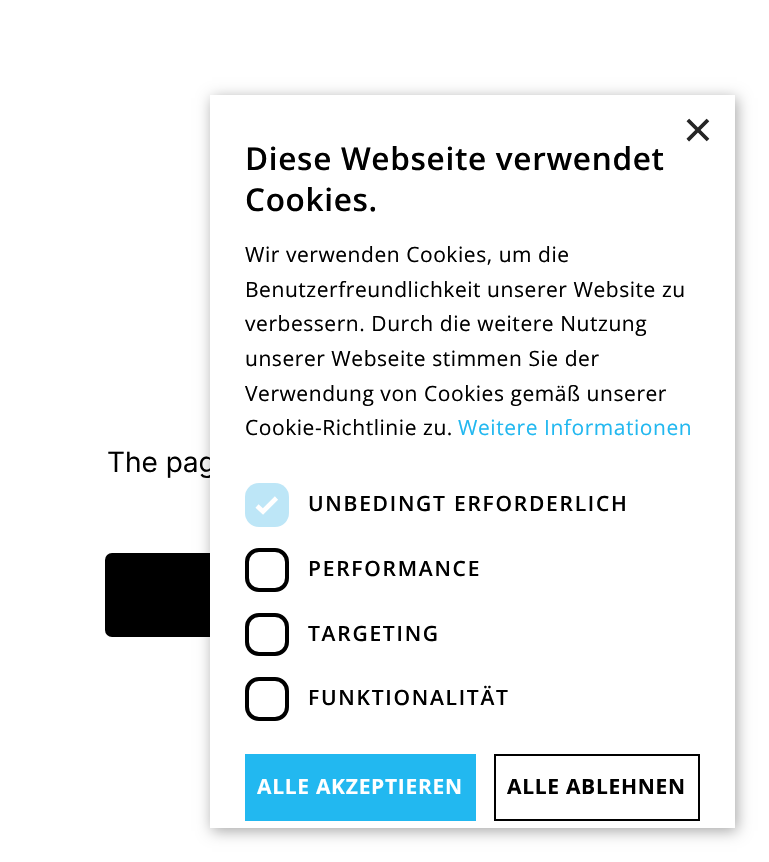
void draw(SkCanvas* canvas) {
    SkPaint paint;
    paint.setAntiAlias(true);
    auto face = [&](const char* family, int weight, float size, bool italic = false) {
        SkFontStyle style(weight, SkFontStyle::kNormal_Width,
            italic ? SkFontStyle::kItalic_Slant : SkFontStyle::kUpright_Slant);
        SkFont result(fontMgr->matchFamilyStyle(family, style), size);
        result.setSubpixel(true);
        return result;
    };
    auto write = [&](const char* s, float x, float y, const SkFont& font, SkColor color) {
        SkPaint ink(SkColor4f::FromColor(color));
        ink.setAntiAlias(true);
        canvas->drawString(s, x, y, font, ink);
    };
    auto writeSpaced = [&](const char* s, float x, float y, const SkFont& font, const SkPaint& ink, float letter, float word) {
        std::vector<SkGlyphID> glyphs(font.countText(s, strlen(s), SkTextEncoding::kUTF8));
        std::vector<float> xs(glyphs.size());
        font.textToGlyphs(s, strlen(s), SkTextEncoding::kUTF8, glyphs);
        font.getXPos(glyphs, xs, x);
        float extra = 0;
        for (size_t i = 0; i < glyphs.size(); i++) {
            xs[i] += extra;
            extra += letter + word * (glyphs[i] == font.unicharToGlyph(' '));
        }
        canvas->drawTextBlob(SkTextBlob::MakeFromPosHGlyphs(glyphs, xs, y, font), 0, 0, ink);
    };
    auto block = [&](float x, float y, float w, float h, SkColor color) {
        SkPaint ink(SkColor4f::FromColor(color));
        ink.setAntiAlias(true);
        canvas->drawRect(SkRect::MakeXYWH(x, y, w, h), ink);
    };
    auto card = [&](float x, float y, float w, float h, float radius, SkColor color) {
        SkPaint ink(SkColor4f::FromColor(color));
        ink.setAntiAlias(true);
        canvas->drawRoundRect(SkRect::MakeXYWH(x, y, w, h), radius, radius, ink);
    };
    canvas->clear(SK_ColorWHITE);
    auto kFont1 = face("Inter", 400, 28);
    write("The pag", 107, 472, kFont1, SK_ColorBLACK);
    card(105, 553, 560, 84, 7, SK_ColorBLACK);
    paint.setColor(SkColorSetARGB(89, 0, 0, 0));
    paint.setMaskFilter(SkMaskFilter::MakeBlur(kNormal_SkBlurStyle, 7));
    canvas->drawRect(SkRect::MakeXYWH(212, 98, 525, 733), paint);
    paint.setMaskFilter(nullptr);
    block(210, 95, 525, 733, SK_ColorWHITE);
    auto kFont2 = face("Liberation Sans", 400, 51);
    write("×", 683, 147, kFont2, SkColorSetRGB(38, 38, 38));
    auto kFont3 = face("Open Sans", 600, 31.5f);
    paint.setColor(SK_ColorBLACK);
    writeSpaced("Diese Webseite verwendet", 245, 170, kFont3, paint, 0.7f, 0);
    writeSpaced("Cookies.", 245, 211, kFont3, paint, 0.7f, 0);
    auto kFont4 = face("Open Sans", 400, 21);
    writeSpaced("Wir verwenden Cookies, um die", 245, 262, kFont4, paint, 0.55f, 0);
    writeSpaced("Benutzerfreundlichkeit unserer Website zu", 245, 297, kFont4, paint, 0.55f, 0);
    writeSpaced("verbessern. Durch die weitere Nutzung", 245, 331, kFont4, paint, 0.55f, 0);
    writeSpaced("unserer Webseite stimmen Sie der", 245, 366, kFont4, paint, 0.55f, 0);
    writeSpaced("Verwendung von Cookies gemäß unserer", 245, 401, kFont4, paint, 0.55f, 0);
    writeSpaced("Cookie-Richtlinie zu.", 245, 435, kFont4, paint, 0.55f, 0);
    paint.setColor(SkColorSetRGB(34, 184, 240));
    writeSpaced("Weitere Informationen", 458, 435, kFont4, paint, 0.55f, 0);
    card(245, 483, 44, 44, 14, SkColorSetRGB(189, 230, 247));
    paint.setStyle(SkPaint::kStroke_Style);
    paint.setStrokeWidth(4.6f);
    paint.setColor(SK_ColorWHITE);
    canvas->drawPath(SkPathBuilder().moveTo(257, 506).lineTo(263, 511.5f).lineTo(276.5f, 498).detach(), paint);
    auto kFont5 = face("Open Sans", 600, 21);
    paint.setStyle(SkPaint::kFill_Style);
    paint.setColor(SK_ColorBLACK);
    writeSpaced("UNBEDINGT ERFORDERLICH", 308, 511, kFont5, paint, 1.75f, 0);
    paint.setStyle(SkPaint::kStroke_Style);
    paint.setStrokeWidth(4);
    canvas->drawRoundRect(SkRect::MakeXYWH(247, 550, 40, 40), 12, 12, paint);
    paint.setStyle(SkPaint::kFill_Style);
    writeSpaced("PERFORMANCE", 308, 576, kFont5, paint, 1.75f, 0);
    paint.setStyle(SkPaint::kStroke_Style);
    canvas->drawRoundRect(SkRect::MakeXYWH(247, 615, 40, 39), 12, 12, paint);
    paint.setStyle(SkPaint::kFill_Style);
    writeSpaced("TARGETING", 308, 641, kFont5, paint, 1.75f, 0);
    paint.setStyle(SkPaint::kStroke_Style);
    canvas->drawRoundRect(SkRect::MakeXYWH(247, 679, 40, 40), 12, 12, paint);
    paint.setStyle(SkPaint::kFill_Style);
    writeSpaced("FUNKTIONALITÄT", 308, 705, kFont5, paint, 1.75f, 0);
    block(245, 754, 231, 67, SkColorSetRGB(34, 184, 240));
    auto kFont6 = face("Open Sans", 700, 21);
    paint.setColor(SK_ColorWHITE);
    writeSpaced("ALLE AKZEPTIEREN", 257, 794, kFont6, paint, 0.7f, 0);
    paint.setStyle(SkPaint::kStroke_Style);
    paint.setStrokeWidth(2);
    paint.setColor(SK_ColorBLACK);
    canvas->drawRect(SkRect::MakeXYWH(495, 755, 204, 65), paint);
    paint.setStyle(SkPaint::kFill_Style);
    writeSpaced("ALLE ABLEHNEN", 507, 794, kFont6, paint, 0.7f, 0);
}
